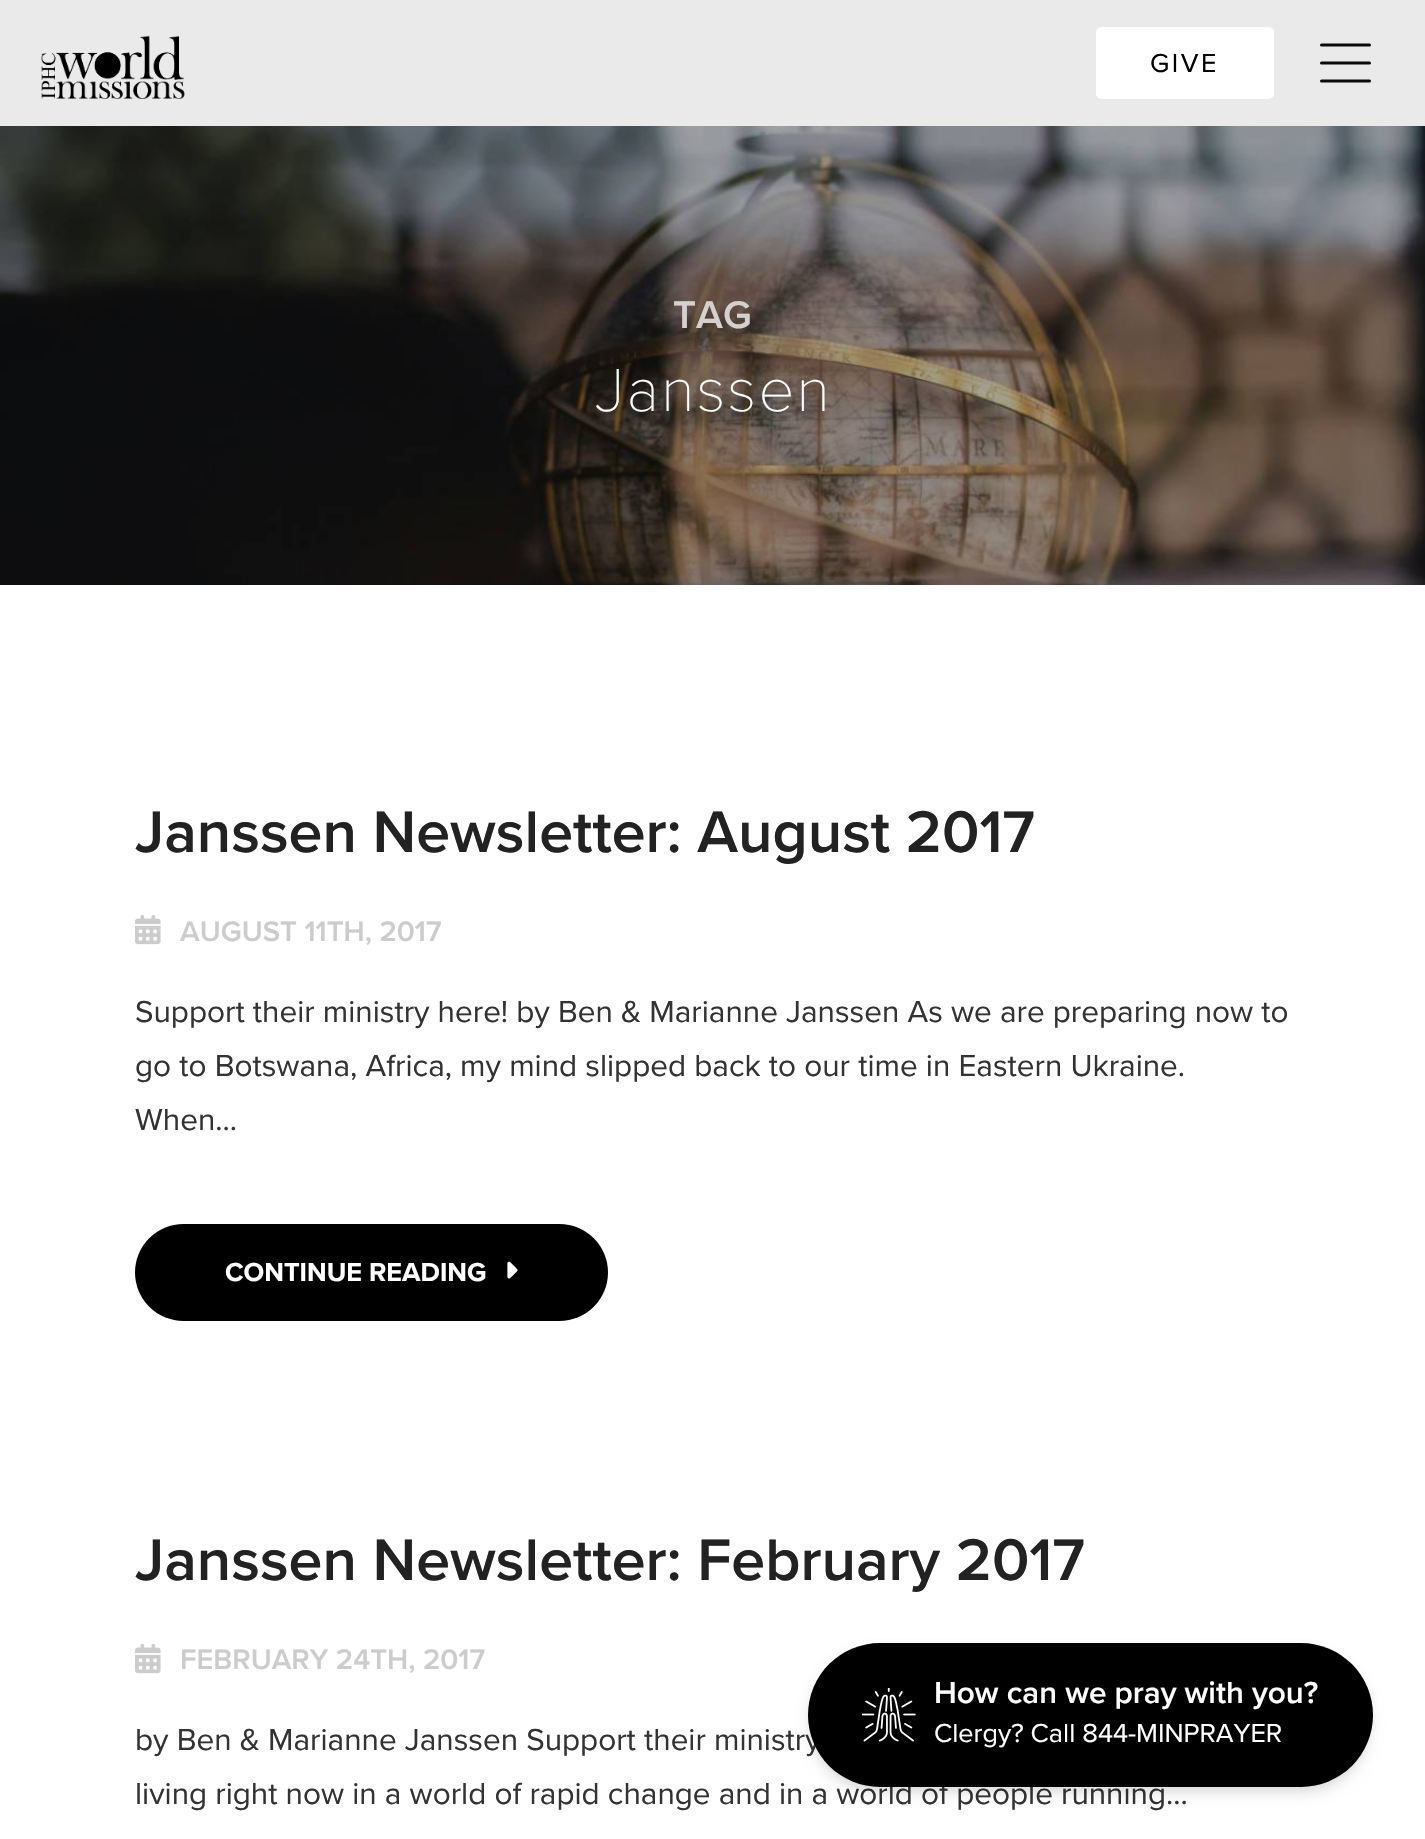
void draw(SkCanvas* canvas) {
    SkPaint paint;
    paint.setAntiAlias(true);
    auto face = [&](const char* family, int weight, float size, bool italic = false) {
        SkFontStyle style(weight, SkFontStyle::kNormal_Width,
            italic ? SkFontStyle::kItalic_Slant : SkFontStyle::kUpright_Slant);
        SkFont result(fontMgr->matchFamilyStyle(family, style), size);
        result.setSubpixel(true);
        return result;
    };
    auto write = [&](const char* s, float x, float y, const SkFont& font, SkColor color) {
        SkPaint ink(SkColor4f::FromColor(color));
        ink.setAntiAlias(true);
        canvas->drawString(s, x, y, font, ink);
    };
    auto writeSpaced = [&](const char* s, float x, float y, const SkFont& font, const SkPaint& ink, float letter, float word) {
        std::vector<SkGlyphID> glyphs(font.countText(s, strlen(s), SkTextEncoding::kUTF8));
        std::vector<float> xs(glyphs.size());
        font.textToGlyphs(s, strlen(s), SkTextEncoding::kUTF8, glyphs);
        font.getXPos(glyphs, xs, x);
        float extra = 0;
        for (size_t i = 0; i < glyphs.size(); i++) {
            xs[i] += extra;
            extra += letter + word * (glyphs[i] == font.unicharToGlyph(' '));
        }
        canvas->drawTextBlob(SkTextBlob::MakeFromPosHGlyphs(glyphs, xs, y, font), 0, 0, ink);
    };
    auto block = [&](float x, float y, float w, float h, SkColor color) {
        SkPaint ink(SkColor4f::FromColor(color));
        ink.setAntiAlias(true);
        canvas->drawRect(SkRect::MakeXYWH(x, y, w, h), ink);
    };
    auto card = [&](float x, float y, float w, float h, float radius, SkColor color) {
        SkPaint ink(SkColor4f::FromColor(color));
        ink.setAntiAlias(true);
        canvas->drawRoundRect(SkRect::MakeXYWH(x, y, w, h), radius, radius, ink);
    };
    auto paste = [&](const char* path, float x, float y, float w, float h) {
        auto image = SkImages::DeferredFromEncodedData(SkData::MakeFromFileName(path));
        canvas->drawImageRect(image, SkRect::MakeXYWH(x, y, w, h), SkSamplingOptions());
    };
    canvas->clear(SK_ColorWHITE);
    block(0, 0, 1425, 126, SkColorSetRGB(234, 234, 234));
    paste("pic1.png", 41, 35, 144, 64);
    card(1096, 27, 178, 72, 5, SK_ColorWHITE);
    auto kFont1 = face("Proxima Nova", 400, 27);
    paint.setColor(SK_ColorBLACK);
    writeSpaced("GIVE", 1150, 72, kFont1, paint, 2.5f, 0);
    paint.setStyle(SkPaint::kStroke_Style);
    paint.setStrokeWidth(3);
    paint.setStrokeCap(SkPaint::kRound_Cap);
    paint.setStrokeJoin(SkPaint::kRound_Join);
    paint.setColor(SkColorSetRGB(10, 10, 10));
    canvas->drawPath(SkPathBuilder().moveTo(1321.5f, 45).lineTo(1369.5f, 45).moveTo(1321.5f, 63).lineTo(1369.5f, 63).moveTo(1321.5f, 81).lineTo(1369.5f, 81).detach(), paint);
    paste("pic2.png", 0, 126, 1425, 459);
    auto kFont2 = face("Proxima Nova", 600, 40);
    write("TAG", 673, 328, kFont2, SkColorSetRGB(213, 209, 207));
    auto kFont3 = face("Proxima Nova", 100, 63);
    paint.setStyle(SkPaint::kFill_Style);
    paint.setColor(SK_ColorWHITE);
    writeSpaced("Janssen", 595, 411, kFont3, paint, 2.25f, 0);
    auto kFont4 = face("Proxima Nova", 600, 60.75f);
    write("Janssen Newsletter: August 2017", 135, 852, kFont4, SkColorSetRGB(34, 34, 34));
    paste("pic3.png", 135, 915, 26, 30);
    auto kFont5 = face("Proxima Nova", 600, 29.25f);
    write("AUGUST 11TH, 2017", 180, 941, kFont5, SkColorSetRGB(204, 204, 204));
    auto kFont6 = face("Proxima Nova", 400, 31.5f);
    write("Support their ministry here! by Ben & Marianne Janssen As we are preparing now to", 135, 1022, kFont6, SkColorSetRGB(51, 51, 51));
    write("go to Botswana, Africa, my mind slipped back to our time in Eastern Ukraine.", 135, 1076, kFont6, SkColorSetRGB(51, 51, 51));
    write("When...", 135, 1130, kFont6, SkColorSetRGB(51, 51, 51));
    card(135, 1224, 473, 97, 48.5f, SK_ColorBLACK);
    auto kFont7 = face("Proxima Nova", 700, 27);
    write("CONTINUE READING", 225, 1281, kFont7, SK_ColorWHITE);
    paste("pic4.png", 507, 1261, 11, 18);
    write("Janssen Newsletter: February 2017", 135, 1580, kFont4, SkColorSetRGB(34, 34, 34));
    paste("pic3.png", 135, 1644, 26, 30);
    write("FEBRUARY 24TH, 2017", 180, 1669, kFont5, SkColorSetRGB(204, 204, 204));
    write("by Ben & Marianne Janssen Support their ministry", 135, 1750, kFont6, SkColorSetRGB(51, 51, 51));
    write("living right now in a world of rapid change and in a world of people running...", 135, 1804, kFont6, SkColorSetRGB(51, 51, 51));
    paint.setColor(SkColorSetARGB(15, 0, 0, 0));
    paint.setMaskFilter(SkMaskFilter::MakeBlur(kNormal_SkBlurStyle, 4.5f));
    canvas->drawRoundRect(SkRect::MakeXYWH(810, 1649, 560, 140), 70, 70, paint);
    paint.setMaskFilter(nullptr);
    paint.setColor(SkColorSetARGB(26, 0, 0, 0));
    paint.setMaskFilter(SkMaskFilter::MakeBlur(kNormal_SkBlurStyle, 7));
    canvas->drawRoundRect(SkRect::MakeXYWH(810, 1654, 560, 139), 69.5f, 69.5f, paint);
    paint.setMaskFilter(nullptr);
    card(808, 1643, 565, 144, 72, SK_ColorBLACK);
    paste("pic5.png", 862, 1688, 54, 54);
    auto kFont8 = face("Proxima Nova", 600, 31.5f);
    write("How can we pray with you?", 934, 1703, kFont8, SK_ColorWHITE);
    write("Clergy? Call 844-MINPRAYER", 934, 1742, kFont1, SK_ColorWHITE);
}
